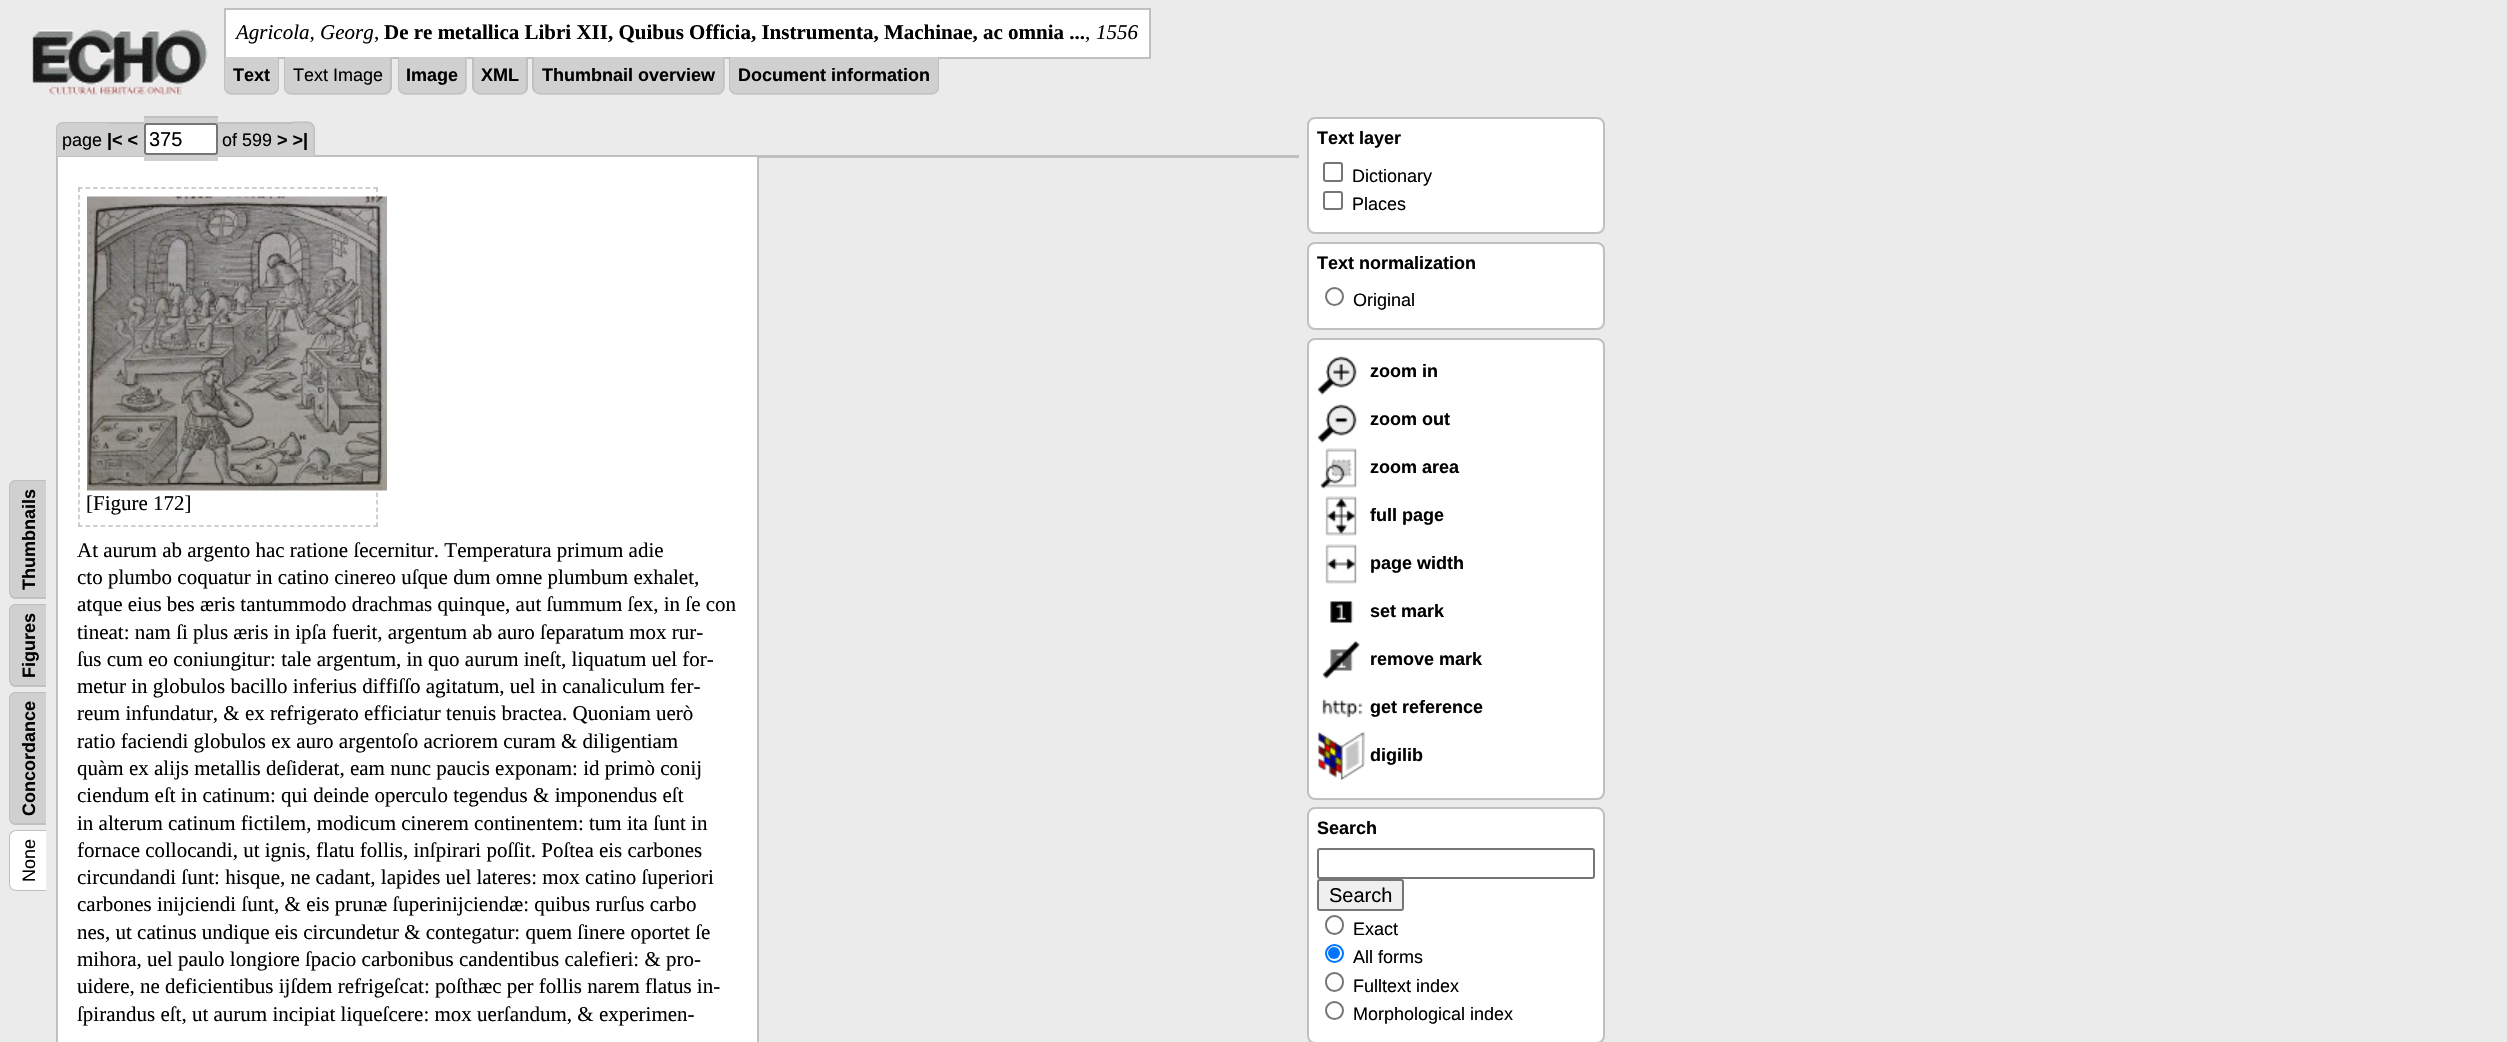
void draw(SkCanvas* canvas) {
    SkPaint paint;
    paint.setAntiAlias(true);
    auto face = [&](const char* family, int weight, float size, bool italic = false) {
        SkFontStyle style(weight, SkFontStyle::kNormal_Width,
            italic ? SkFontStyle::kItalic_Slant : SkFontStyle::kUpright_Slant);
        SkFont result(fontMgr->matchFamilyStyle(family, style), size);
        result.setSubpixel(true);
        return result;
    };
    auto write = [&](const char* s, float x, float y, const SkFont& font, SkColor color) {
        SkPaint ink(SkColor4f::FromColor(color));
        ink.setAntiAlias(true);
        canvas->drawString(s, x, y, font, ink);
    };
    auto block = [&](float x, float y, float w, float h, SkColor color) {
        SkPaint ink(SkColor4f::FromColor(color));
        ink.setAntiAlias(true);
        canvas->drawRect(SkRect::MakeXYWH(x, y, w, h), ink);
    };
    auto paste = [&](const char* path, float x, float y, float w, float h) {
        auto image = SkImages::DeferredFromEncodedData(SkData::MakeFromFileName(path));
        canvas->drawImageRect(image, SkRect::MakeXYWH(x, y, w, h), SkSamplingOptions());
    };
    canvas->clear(SkColorSetRGB(235, 235, 235));
    paste("pic1.png", 32, 29, 176, 66);
    paint.setColor(SK_ColorWHITE);
    canvas->drawRect(SkRect::MakeXYWH(225, 9, 925, 49), paint);
    paint.setStyle(SkPaint::kStroke_Style);
    paint.setStrokeWidth(2);
    paint.setColor(SkColorSetRGB(192, 192, 192));
    canvas->drawRect(SkRect::MakeXYWH(225, 9, 925, 49), paint);
    auto kFont1 = face("Liberation Serif", 400, 21, true);
    write("Agricola, Georg", 236, 39, kFont1, SK_ColorBLACK);
    auto kFont2 = face("Liberation Serif", 400, 21);
    write(",", 374, 39, kFont2, SK_ColorBLACK);
    auto kFont3 = face("Liberation Serif", 700, 21);
    write("De re metallica Libri XII, Quibus Officia, Instrumenta, Machinae, ac omnia ...", 384, 39, kFont3, SK_ColorBLACK);
    write(",", 1085, 39, kFont2, SK_ColorBLACK);
    write("1556", 1096, 39, kFont1, SK_ColorBLACK);
    paint.setStyle(SkPaint::kFill_Style);
    paint.setColor(SkColorSetRGB(208, 208, 208));
    canvas->drawPath(SkPathBuilder().moveTo(224, 57).lineTo(279, 57).lineTo(279, 87).cubicTo(279, 91.5f, 275.5f, 95, 271, 95).lineTo(232, 95).cubicTo(227.5f, 95, 224, 91.5f, 224, 87).close().detach(), paint);
    paint.setColor(SkColorSetRGB(192, 192, 192));
    canvas->drawPath(SkPathBuilder(SkPathFillType::kEvenOdd).moveTo(224, 57).lineTo(279, 57).lineTo(279, 87).cubicTo(279, 91, 276, 94, 272, 94).lineTo(231, 94).cubicTo(227, 94, 224, 91, 224, 87).close().moveTo(225, 57).lineTo(278, 57).lineTo(278, 87).cubicTo(278, 90, 275, 93, 272, 93).lineTo(231, 93).cubicTo(228, 93, 225, 90, 225, 87).close().detach(), paint);
    auto kFont4 = face("Liberation Sans", 700, 18);
    write("Text", 233, 81, kFont4, SK_ColorBLACK);
    paint.setColor(SkColorSetRGB(208, 208, 208));
    canvas->drawPath(SkPathBuilder().moveTo(284, 57).lineTo(392, 57).lineTo(392, 87).cubicTo(392, 91.5f, 388.5f, 95, 384, 95).lineTo(292, 95).cubicTo(287.5f, 95, 284, 91.5f, 284, 87).close().detach(), paint);
    paint.setColor(SkColorSetRGB(192, 192, 192));
    canvas->drawPath(SkPathBuilder(SkPathFillType::kEvenOdd).moveTo(284, 57).lineTo(392, 57).lineTo(392, 87).cubicTo(392, 91, 388, 94, 384, 94).lineTo(291, 94).cubicTo(287, 94, 284, 91, 284, 87).close().moveTo(285, 57).lineTo(390, 57).lineTo(390, 87).cubicTo(390, 90, 387, 93, 384, 93).lineTo(291, 93).cubicTo(288, 93, 285, 90, 285, 87).close().detach(), paint);
    auto kFont5 = face("Liberation Sans", 400, 18);
    write("Text Image", 293, 81, kFont5, SK_ColorBLACK);
    paint.setColor(SkColorSetRGB(208, 208, 208));
    canvas->drawPath(SkPathBuilder().moveTo(398, 57).lineTo(467, 57).lineTo(467, 87).cubicTo(467, 91.5f, 463.5f, 95, 459, 95).lineTo(406, 95).cubicTo(401.5f, 95, 398, 91.5f, 398, 87).close().detach(), paint);
    paint.setColor(SkColorSetRGB(192, 192, 192));
    canvas->drawPath(SkPathBuilder(SkPathFillType::kEvenOdd).moveTo(398, 57).lineTo(466, 57).lineTo(466, 87).cubicTo(466, 91, 463, 94, 459, 94).lineTo(405, 94).cubicTo(401, 94, 398, 91, 398, 87).close().moveTo(399, 57).lineTo(465, 57).lineTo(465, 87).cubicTo(465, 90, 462, 93, 459, 93).lineTo(405, 93).cubicTo(402, 93, 399, 90, 399, 87).close().detach(), paint);
    write("Image", 406, 81, kFont4, SK_ColorBLACK);
    paint.setColor(SkColorSetRGB(208, 208, 208));
    canvas->drawPath(SkPathBuilder().moveTo(473, 57).lineTo(528, 57).lineTo(528, 87).cubicTo(528, 91.5f, 524.5f, 95, 520, 95).lineTo(481, 95).cubicTo(476.5f, 95, 473, 91.5f, 473, 87).close().detach(), paint);
    paint.setColor(SkColorSetRGB(192, 192, 192));
    canvas->drawPath(SkPathBuilder(SkPathFillType::kEvenOdd).moveTo(472, 57).lineTo(528, 57).lineTo(528, 87).cubicTo(528, 91, 525, 94, 520, 94).lineTo(480, 94).cubicTo(476, 94, 472, 91, 472, 87).close().moveTo(474, 57).lineTo(526, 57).lineTo(526, 87).cubicTo(526, 90, 524, 93, 520, 93).lineTo(480, 93).cubicTo(477, 93, 474, 90, 474, 87).close().detach(), paint);
    write("XML", 481, 81, kFont4, SK_ColorBLACK);
    paint.setColor(SkColorSetRGB(208, 208, 208));
    canvas->drawPath(SkPathBuilder().moveTo(533, 57).lineTo(725, 57).lineTo(725, 87).cubicTo(725, 91.5f, 721.5f, 95, 717, 95).lineTo(541, 95).cubicTo(536.5f, 95, 533, 91.5f, 533, 87).close().detach(), paint);
    paint.setColor(SkColorSetRGB(192, 192, 192));
    canvas->drawPath(SkPathBuilder(SkPathFillType::kEvenOdd).moveTo(532, 57).lineTo(724, 57).lineTo(724, 87).cubicTo(724, 91, 721, 94, 717, 94).lineTo(540, 94).cubicTo(536, 94, 532, 91, 532, 87).close().moveTo(534, 57).lineTo(723, 57).lineTo(723, 87).cubicTo(723, 90, 720, 93, 717, 93).lineTo(540, 93).cubicTo(537, 93, 534, 90, 534, 87).close().detach(), paint);
    write("Thumbnail overview", 542, 81, kFont4, SK_ColorBLACK);
    paint.setColor(SkColorSetRGB(208, 208, 208));
    canvas->drawPath(SkPathBuilder().moveTo(729, 57).lineTo(939, 57).lineTo(939, 87).cubicTo(939, 91.5f, 935.5f, 95, 931, 95).lineTo(737, 95).cubicTo(732.5f, 95, 729, 91.5f, 729, 87).close().detach(), paint);
    paint.setColor(SkColorSetRGB(192, 192, 192));
    canvas->drawPath(SkPathBuilder(SkPathFillType::kEvenOdd).moveTo(729, 57).lineTo(939, 57).lineTo(939, 87).cubicTo(939, 91, 936, 94, 932, 94).lineTo(736, 94).cubicTo(732, 94, 729, 91, 729, 87).close().moveTo(730, 57).lineTo(938, 57).lineTo(938, 87).cubicTo(938, 90, 935, 93, 932, 93).lineTo(736, 93).cubicTo(733, 93, 730, 90, 730, 87).close().detach(), paint);
    write("Document information", 738, 81, kFont4, SK_ColorBLACK);
    paint.setColor(SkColorSetRGB(208, 208, 208));
    canvas->drawPath(SkPathBuilder().moveTo(9, 591).lineTo(9, 487).cubicTo(9, 483, 12, 480, 16, 480).lineTo(46, 480).lineTo(46, 599).lineTo(16, 599).cubicTo(12, 599, 9, 596, 9, 591).close().detach(), paint);
    paint.setColor(SkColorSetRGB(192, 192, 192));
    canvas->drawPath(SkPathBuilder(SkPathFillType::kEvenOdd).moveTo(9, 591).lineTo(9, 487).cubicTo(9, 483, 12, 480, 16, 480).lineTo(46, 480).lineTo(46, 599).lineTo(16, 599).cubicTo(12, 599, 9, 596, 9, 591).close().moveTo(10, 591).lineTo(10, 487).cubicTo(10, 484, 13, 481, 16, 481).lineTo(46, 481).lineTo(46, 597).lineTo(16, 597).cubicTo(13, 597, 10, 595, 10, 591).close().detach(), paint);
    canvas->save();
    canvas->rotate(-90, 35, 590);
    write("Thumbnails", 35, 590, kFont4, SK_ColorBLACK);
    canvas->restore();
    paint.setColor(SkColorSetRGB(208, 208, 208));
    canvas->drawPath(SkPathBuilder().moveTo(9, 679).lineTo(9, 611).cubicTo(9, 607, 12, 604, 16, 604).lineTo(46, 604).lineTo(46, 687).lineTo(16, 687).cubicTo(12, 687, 9, 684, 9, 679).close().detach(), paint);
    paint.setColor(SkColorSetRGB(192, 192, 192));
    canvas->drawPath(SkPathBuilder(SkPathFillType::kEvenOdd).moveTo(9, 679).lineTo(9, 611).cubicTo(9, 607, 12, 604, 16, 604).lineTo(46, 604).lineTo(46, 687).lineTo(16, 687).cubicTo(12, 687, 9, 684, 9, 679).close().moveTo(10, 679).lineTo(10, 611).cubicTo(10, 608, 13, 605, 16, 605).lineTo(46, 605).lineTo(46, 685).lineTo(16, 685).cubicTo(13, 685, 10, 683, 10, 679).close().detach(), paint);
    canvas->save();
    canvas->rotate(-90, 35, 678);
    write("Figures", 35, 678, kFont4, SK_ColorBLACK);
    canvas->restore();
    paint.setColor(SkColorSetRGB(208, 208, 208));
    canvas->drawPath(SkPathBuilder().moveTo(9, 817).lineTo(9, 699).cubicTo(9, 695, 12, 692, 16, 692).lineTo(46, 692).lineTo(46, 825).lineTo(16, 825).cubicTo(12, 825, 9, 822, 9, 817).close().detach(), paint);
    paint.setColor(SkColorSetRGB(192, 192, 192));
    canvas->drawPath(SkPathBuilder(SkPathFillType::kEvenOdd).moveTo(9, 817).lineTo(9, 699).cubicTo(9, 695, 12, 692, 16, 692).lineTo(46, 692).lineTo(46, 825).lineTo(16, 825).cubicTo(12, 825, 9, 822, 9, 817).close().moveTo(10, 817).lineTo(10, 699).cubicTo(10, 696, 13, 693, 16, 693).lineTo(46, 693).lineTo(46, 823).lineTo(16, 823).cubicTo(13, 823, 10, 821, 10, 817).close().detach(), paint);
    canvas->save();
    canvas->rotate(-90, 35, 816);
    write("Concordance", 35, 816, kFont4, SK_ColorBLACK);
    canvas->restore();
    paint.setColor(SK_ColorWHITE);
    canvas->drawPath(SkPathBuilder().moveTo(9, 884).lineTo(9, 837).cubicTo(9, 833, 12, 830, 16, 830).lineTo(46, 830).lineTo(46, 891).lineTo(16, 891).cubicTo(12, 891, 9, 888, 9, 884).close().detach(), paint);
    paint.setColor(SkColorSetRGB(192, 192, 192));
    canvas->drawPath(SkPathBuilder(SkPathFillType::kEvenOdd).moveTo(9, 884).lineTo(9, 837).cubicTo(9, 833, 12, 830, 16, 830).lineTo(46, 830).lineTo(46, 891).lineTo(16, 891).cubicTo(12, 891, 9, 888, 9, 884).close().moveTo(10, 884).lineTo(10, 837).cubicTo(10, 834, 13, 831, 16, 831).lineTo(46, 831).lineTo(46, 890).lineTo(16, 890).cubicTo(13, 890, 10, 887, 10, 884).close().detach(), paint);
    canvas->save();
    canvas->rotate(-90, 35, 882);
    write("None", 35, 882, kFont5, SK_ColorBLACK);
    canvas->restore();
    paint.setColor(SK_ColorWHITE);
    canvas->drawRect(SkRect::MakeXYWH(57, 156, 701, 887), paint);
    paint.setStyle(SkPaint::kStroke_Style);
    paint.setColor(SkColorSetRGB(192, 192, 192));
    canvas->drawRect(SkRect::MakeXYWH(57, 156, 701, 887), paint);
    paint.setStyle(SkPaint::kFill_Style);
    paint.setColor(SkColorSetRGB(208, 208, 208));
    canvas->drawPath(SkPathBuilder().moveTo(64, 122).lineTo(108, 122).lineTo(108, 156).lineTo(56, 156).lineTo(56, 130).cubicTo(56, 125.5f, 59.5f, 122, 64, 122).close().detach(), paint);
    paint.setColor(SkColorSetRGB(192, 192, 192));
    canvas->drawPath(SkPathBuilder(SkPathFillType::kEvenOdd).moveTo(63, 122).lineTo(108, 122).lineTo(108, 156).lineTo(56, 156).lineTo(56, 129).cubicTo(56, 125, 59, 122, 63, 122).close().moveTo(63, 123).lineTo(108, 123).lineTo(108, 156).lineTo(57, 156).lineTo(57, 129).cubicTo(57, 126, 60, 123, 63, 123).close().detach(), paint);
    block(108, 124, 15, 32, SkColorSetRGB(208, 208, 208));
    block(108, 122, 15, 2, SkColorSetRGB(192, 192, 192));
    block(123, 122, 5, 34, SkColorSetRGB(208, 208, 208));
    block(123, 122, 15, 2, SkColorSetRGB(192, 192, 192));
    block(128, 124, 10, 32, SkColorSetRGB(208, 208, 208));
    block(138, 122, 6, 34, SkColorSetRGB(208, 208, 208));
    block(138, 122, 6, 2, SkColorSetRGB(192, 192, 192));
    block(144, 118, 74, 43, SkColorSetRGB(208, 208, 208));
    block(144, 116, 74, 2, SkColorSetRGB(192, 192, 192));
    block(218, 122, 4, 34, SkColorSetRGB(208, 208, 208));
    block(218, 122, 70, 2, SkColorSetRGB(192, 192, 192));
    block(222, 124, 66, 32, SkColorSetRGB(208, 208, 208));
    block(288, 122, 5, 34, SkColorSetRGB(208, 208, 208));
    block(288, 122, 5, 2, SkColorSetRGB(192, 192, 192));
    paint.setColor(SkColorSetRGB(208, 208, 208));
    canvas->drawPath(SkPathBuilder().moveTo(293, 122).lineTo(307, 122).cubicTo(311.5f, 122, 315, 125.5f, 315, 130).lineTo(315, 156).lineTo(293, 156).close().detach(), paint);
    paint.setColor(SkColorSetRGB(192, 192, 192));
    canvas->drawPath(SkPathBuilder(SkPathFillType::kEvenOdd).moveTo(292.5f, 121.5f).lineTo(307.5f, 121.5f).cubicTo(311.5f, 121.5f, 315, 125, 315, 129).lineTo(315, 156).lineTo(292.5f, 156).close().moveTo(292.5f, 123).lineTo(307.5f, 123).cubicTo(311, 123, 313.5f, 125.5f, 313.5f, 129).lineTo(313.5f, 156).lineTo(292.5f, 156).close().detach(), paint);
    write("page", 62, 146, kFont5, SK_ColorBLACK);
    write("|< <", 107, 146, kFont4, SK_ColorBLACK);
    paint.setColor(SK_ColorWHITE);
    canvas->drawRoundRect(SkRect::MakeXYWH(145, 124, 72, 30), 2, 2, paint);
    paint.setStyle(SkPaint::kStroke_Style);
    paint.setColor(SkColorSetRGB(118, 118, 118));
    canvas->drawRoundRect(SkRect::MakeXYWH(145, 124, 72, 30), 2, 2, paint);
    auto kFont6 = face("Liberation Sans", 400, 20);
    write("375", 149, 146, kFont6, SK_ColorBLACK);
    write("of 599", 222, 146, kFont5, SK_ColorBLACK);
    write("> >|", 277, 146, kFont4, SK_ColorBLACK);
    block(759, 155, 540, 3, SkColorSetRGB(192, 192, 192));
    paint.setStrokeWidth(1.5f);
    paint.setColor(SkColorSetRGB(192, 192, 192));
    paint.setPathEffect(SkDashPathEffect::Make({{4.5f, 3.07f}}, 0));
    canvas->drawPath(SkPathBuilder().moveTo(78, 188).lineTo(378, 188).detach(), paint);
    paint.setPathEffect(nullptr);
    paint.setPathEffect(SkDashPathEffect::Make({{4.5f, 2.94f}}, 0));
    canvas->drawPath(SkPathBuilder().moveTo(377, 187.5f).lineTo(377, 526.5f).detach(), paint);
    paint.setPathEffect(nullptr);
    paint.setPathEffect(SkDashPathEffect::Make({{4.5f, 3.07f}}, 0));
    canvas->drawPath(SkPathBuilder().moveTo(78, 526).lineTo(378, 526).detach(), paint);
    paint.setPathEffect(nullptr);
    paint.setPathEffect(SkDashPathEffect::Make({{4.5f, 2.94f}}, 0));
    canvas->drawPath(SkPathBuilder().moveTo(79, 187.5f).lineTo(79, 526.5f).detach(), paint);
    paint.setPathEffect(nullptr);
    paste("pic2.png", 87, 196, 300, 295);
    write("[Figure 172]", 86, 510, kFont2, SK_ColorBLACK);
    write("At aurum ab argento hac ratione ſecernitur. Temperatura primum adie", 77, 557, kFont2, SK_ColorBLACK);
    write("cto plumbo coquatur in catino cinereo uſque dum omne plumbum exhalet,", 77, 584, kFont2, SK_ColorBLACK);
    write("atque eius bes æris tantummodo drachmas quinque, aut ſummum ſex, in ſe con", 77, 611, kFont2, SK_ColorBLACK);
    write("tineat: nam ſi plus æris in ipſa fuerit, argentum ab auro ſeparatum mox rur-", 77, 639, kFont2, SK_ColorBLACK);
    write("ſus cum eo coniungitur: tale argentum, in quo aurum ineſt, liquatum uel for-", 77, 666, kFont2, SK_ColorBLACK);
    write("metur in globulos bacillo inferius diffiſſo agitatum, uel in canaliculum fer-", 77, 693, kFont2, SK_ColorBLACK);
    write("reum infundatur, & ex refrigerato efficiatur tenuis bractea. Quoniam uerò", 77, 720, kFont2, SK_ColorBLACK);
    write("ratio faciendi globulos ex auro argentoſo acriorem curam & diligentiam", 77, 748, kFont2, SK_ColorBLACK);
    write("quàm ex alijs metallis deſiderat, eam nunc paucis exponam: id primò conij", 77, 775, kFont2, SK_ColorBLACK);
    write("ciendum eſt in catinum: qui deinde operculo tegendus & imponendus eſt", 77, 802, kFont2, SK_ColorBLACK);
    write("in alterum catinum fictilem, modicum cinerem continentem: tum ita ſunt in", 77, 830, kFont2, SK_ColorBLACK);
    write("fornace collocandi, ut ignis, flatu follis, inſpirari poſſit. Poſtea eis carbones", 77, 857, kFont2, SK_ColorBLACK);
    write("circundandi ſunt: hisque, ne cadant, lapides uel lateres: mox catino ſuperiori", 77, 884, kFont2, SK_ColorBLACK);
    write("carbones inijciendi ſunt, & eis prunæ ſuperinijciendæ: quibus rurſus carbo", 77, 911, kFont2, SK_ColorBLACK);
    write("nes, ut catinus undique eis circundetur & contegatur: quem ſinere oportet ſe", 77, 939, kFont2, SK_ColorBLACK);
    write("mihora, uel paulo longiore ſpacio carbonibus candentibus calefieri: & pro-", 77, 966, kFont2, SK_ColorBLACK);
    write("uidere, ne deficientibus ijſdem refrigeſcat: poſthæc per follis narem flatus in-", 77, 993, kFont2, SK_ColorBLACK);
    write("ſpirandus eſt, ut aurum incipiat liqueſcere: mox uerſandum, & experimen-", 77, 1021, kFont2, SK_ColorBLACK);
    paint.setStyle(SkPaint::kFill_Style);
    paint.setColor(SK_ColorWHITE);
    canvas->drawRoundRect(SkRect::MakeXYWH(1308, 118, 296, 115), 7, 7, paint);
    paint.setStyle(SkPaint::kStroke_Style);
    paint.setStrokeWidth(2);
    paint.setColor(SkColorSetRGB(192, 192, 192));
    canvas->drawRoundRect(SkRect::MakeXYWH(1308, 118, 296, 115), 7, 7, paint);
    write("Text layer", 1317, 144, kFont4, SK_ColorBLACK);
    paint.setColor(SkColorSetRGB(118, 118, 118));
    canvas->drawRoundRect(SkRect::MakeXYWH(1324, 163, 18, 18), 2, 2, paint);
    write("Dictionary", 1352, 182, kFont5, SK_ColorBLACK);
    canvas->drawRoundRect(SkRect::MakeXYWH(1324, 192, 18, 17), 2, 2, paint);
    write("Places", 1352, 210, kFont5, SK_ColorBLACK);
    paint.setStyle(SkPaint::kFill_Style);
    paint.setColor(SK_ColorWHITE);
    canvas->drawRoundRect(SkRect::MakeXYWH(1308, 243, 296, 86), 7, 7, paint);
    paint.setStyle(SkPaint::kStroke_Style);
    paint.setColor(SkColorSetRGB(192, 192, 192));
    canvas->drawRoundRect(SkRect::MakeXYWH(1308, 243, 296, 86), 7, 7, paint);
    write("Text normalization", 1317, 269, kFont4, SK_ColorBLACK);
    paint.setColor(SkColorSetRGB(118, 118, 118));
    canvas->drawCircle(1334.5f, 296.5f, 8.5f, paint);
    write("Original", 1353, 306, kFont5, SK_ColorBLACK);
    paint.setStyle(SkPaint::kFill_Style);
    paint.setColor(SK_ColorWHITE);
    canvas->drawRoundRect(SkRect::MakeXYWH(1308, 339, 296, 460), 7, 7, paint);
    paint.setStyle(SkPaint::kStroke_Style);
    paint.setColor(SkColorSetRGB(192, 192, 192));
    canvas->drawRoundRect(SkRect::MakeXYWH(1308, 339, 296, 460), 7, 7, paint);
    paste("pic3.png", 1317, 356, 40, 39);
    write("zoom in", 1370, 377, kFont4, SK_ColorBLACK);
    paste("pic4.png", 1317, 404, 40, 39);
    write("zoom out", 1370, 425, kFont4, SK_ColorBLACK);
    paste("pic5.png", 1320, 448, 37, 41);
    write("zoom area", 1370, 473, kFont4, SK_ColorBLACK);
    paste("pic6.png", 1325, 496, 32, 40);
    write("full page", 1370, 521, kFont4, SK_ColorBLACK);
    paste("pic7.png", 1325, 544, 32, 40);
    write("page width", 1370, 569, kFont4, SK_ColorBLACK);
    paste("pic8.png", 1330, 601, 24, 22);
    write("set mark", 1370, 617, kFont4, SK_ColorBLACK);
    paste("pic9.png", 1322, 640, 38, 39);
    write("remove mark", 1370, 665, kFont4, SK_ColorBLACK);
    paste("pic10.png", 1322, 698, 41, 20);
    write("get reference", 1370, 713, kFont4, SK_ColorBLACK);
    paste("pic11.png", 1318, 732, 47, 48);
    write("digilib", 1370, 761, kFont4, SK_ColorBLACK);
    paint.setStyle(SkPaint::kFill_Style);
    paint.setColor(SK_ColorWHITE);
    canvas->drawRoundRect(SkRect::MakeXYWH(1308, 808, 296, 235), 7, 7, paint);
    paint.setStyle(SkPaint::kStroke_Style);
    paint.setColor(SkColorSetRGB(192, 192, 192));
    canvas->drawRoundRect(SkRect::MakeXYWH(1308, 808, 296, 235), 7, 7, paint);
    write("Search", 1317, 834, kFont4, SK_ColorBLACK);
    paint.setColor(SkColorSetRGB(118, 118, 118));
    canvas->drawRoundRect(SkRect::MakeXYWH(1318, 849, 276, 29), 2, 2, paint);
    paint.setStyle(SkPaint::kFill_Style);
    paint.setColor(SkColorSetRGB(239, 239, 239));
    canvas->drawRoundRect(SkRect::MakeXYWH(1318, 880, 85, 30), 2, 2, paint);
    paint.setStyle(SkPaint::kStroke_Style);
    paint.setColor(SkColorSetRGB(118, 118, 118));
    canvas->drawRoundRect(SkRect::MakeXYWH(1318, 880, 85, 30), 2, 2, paint);
    write("Search", 1329, 902, kFont6, SK_ColorBLACK);
    canvas->drawRoundRect(SkRect::MakeXYWH(1326, 916, 17, 18), 8.5f, 8.5f, paint);
    write("Exact", 1353, 935, kFont5, SK_ColorBLACK);
    paint.setColor(SkColorSetRGB(0, 117, 255));
    canvas->drawCircle(1334.5f, 953.5f, 8.5f, paint);
    paint.setStyle(SkPaint::kFill_Style);
    canvas->drawCircle(1334, 953, 6, paint);
    write("All forms", 1353, 963, kFont5, SK_ColorBLACK);
    paint.setStyle(SkPaint::kStroke_Style);
    paint.setColor(SkColorSetRGB(118, 118, 118));
    canvas->drawRoundRect(SkRect::MakeXYWH(1326, 973, 17, 18), 8.5f, 8.5f, paint);
    write("Fulltext index", 1353, 992, kFont5, SK_ColorBLACK);
    canvas->drawCircle(1334.5f, 1010.5f, 8.5f, paint);
    write("Morphological index", 1353, 1020, kFont5, SK_ColorBLACK);
}
